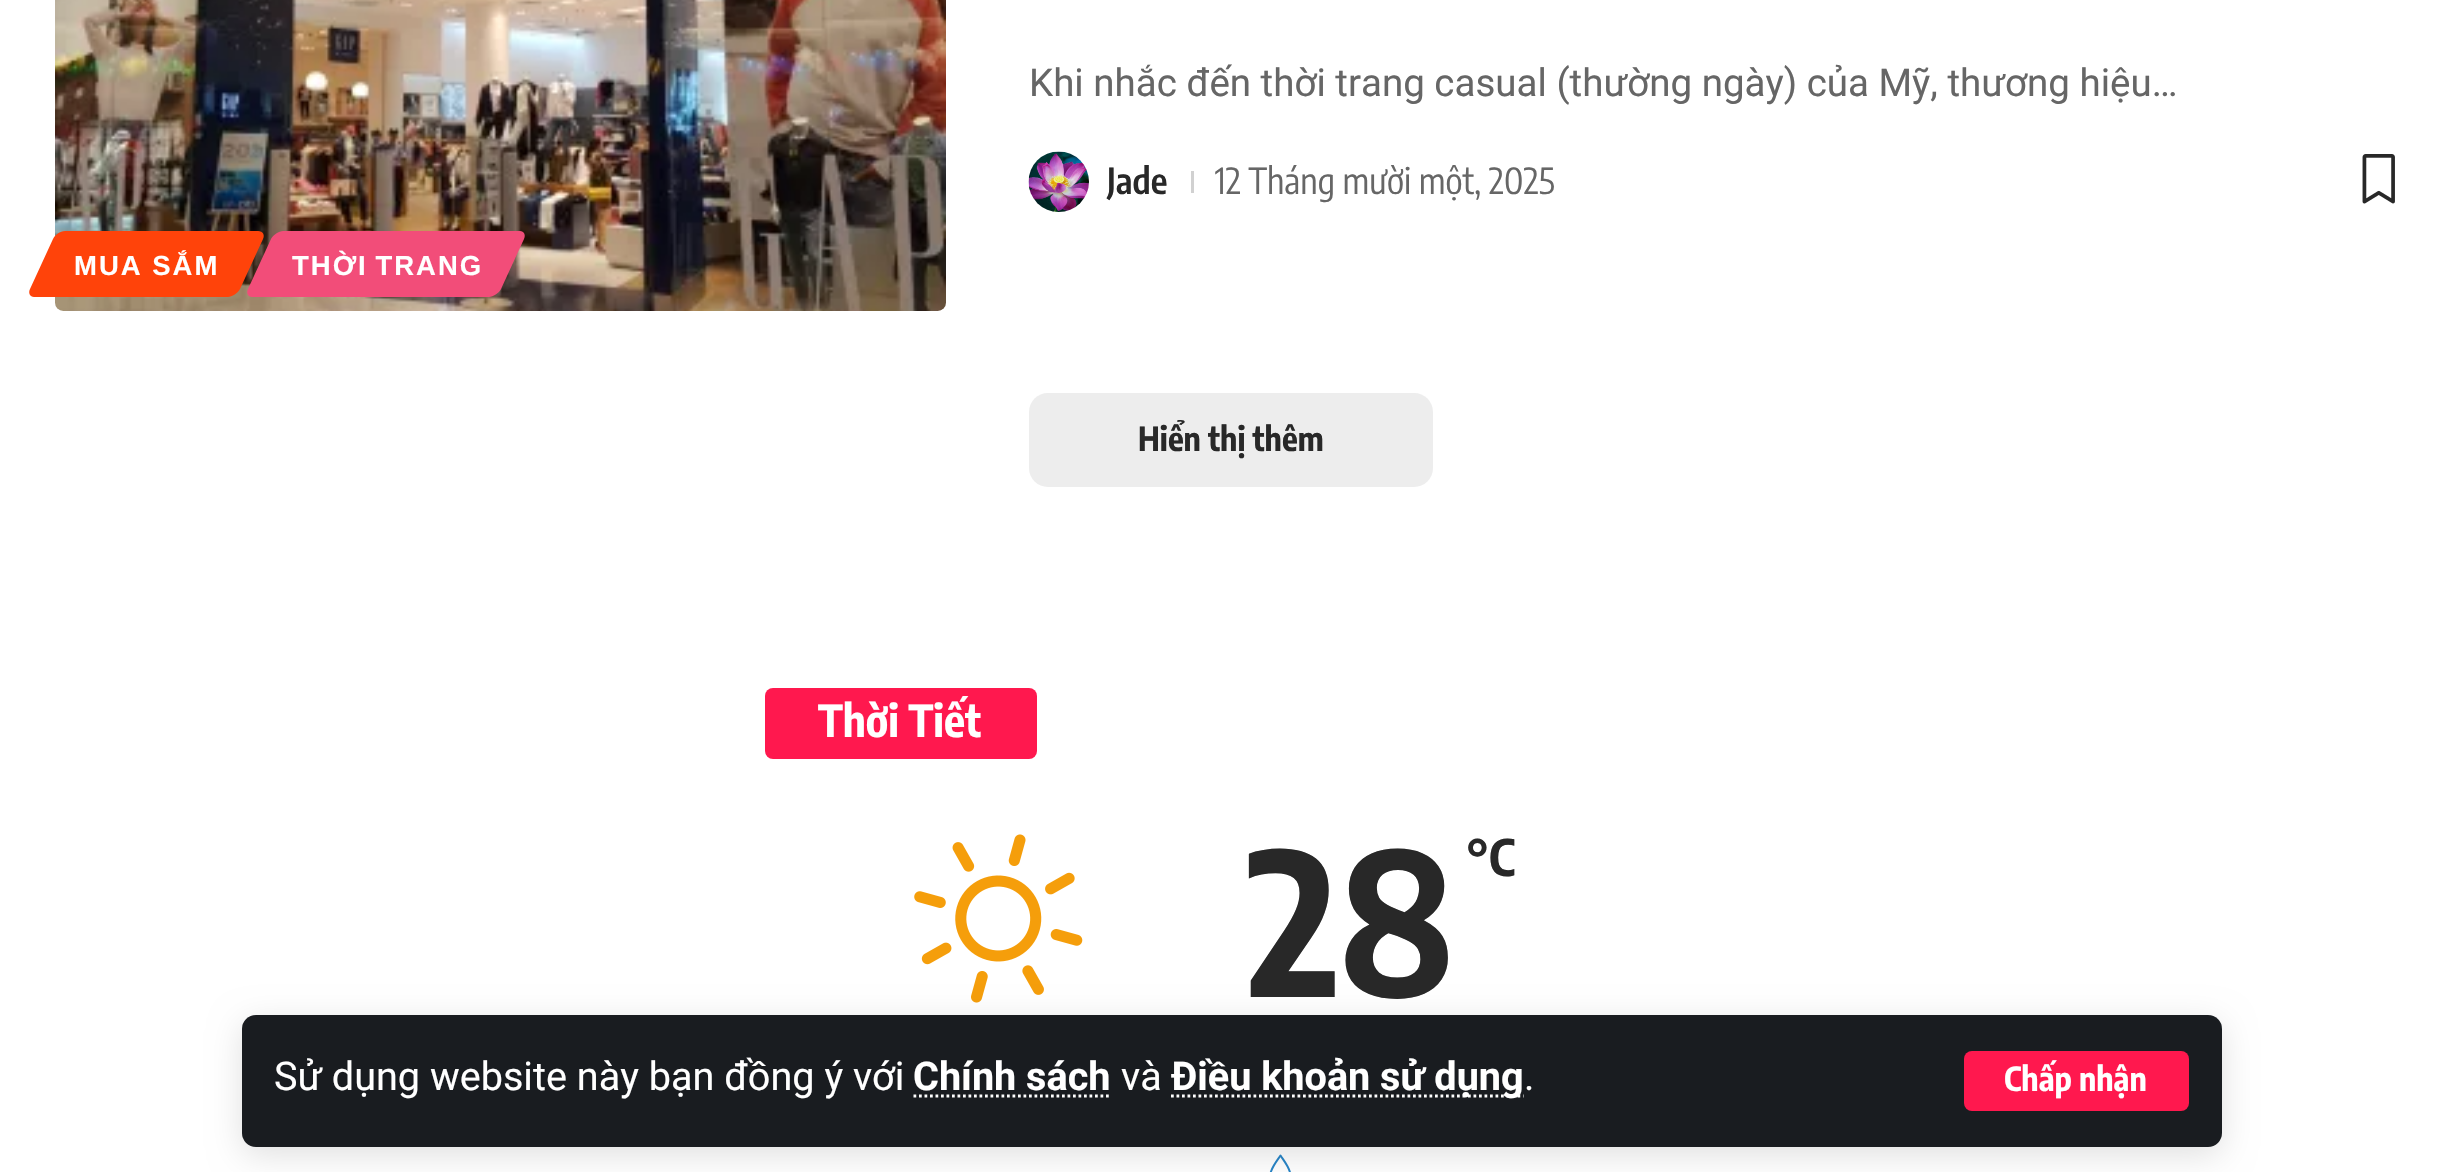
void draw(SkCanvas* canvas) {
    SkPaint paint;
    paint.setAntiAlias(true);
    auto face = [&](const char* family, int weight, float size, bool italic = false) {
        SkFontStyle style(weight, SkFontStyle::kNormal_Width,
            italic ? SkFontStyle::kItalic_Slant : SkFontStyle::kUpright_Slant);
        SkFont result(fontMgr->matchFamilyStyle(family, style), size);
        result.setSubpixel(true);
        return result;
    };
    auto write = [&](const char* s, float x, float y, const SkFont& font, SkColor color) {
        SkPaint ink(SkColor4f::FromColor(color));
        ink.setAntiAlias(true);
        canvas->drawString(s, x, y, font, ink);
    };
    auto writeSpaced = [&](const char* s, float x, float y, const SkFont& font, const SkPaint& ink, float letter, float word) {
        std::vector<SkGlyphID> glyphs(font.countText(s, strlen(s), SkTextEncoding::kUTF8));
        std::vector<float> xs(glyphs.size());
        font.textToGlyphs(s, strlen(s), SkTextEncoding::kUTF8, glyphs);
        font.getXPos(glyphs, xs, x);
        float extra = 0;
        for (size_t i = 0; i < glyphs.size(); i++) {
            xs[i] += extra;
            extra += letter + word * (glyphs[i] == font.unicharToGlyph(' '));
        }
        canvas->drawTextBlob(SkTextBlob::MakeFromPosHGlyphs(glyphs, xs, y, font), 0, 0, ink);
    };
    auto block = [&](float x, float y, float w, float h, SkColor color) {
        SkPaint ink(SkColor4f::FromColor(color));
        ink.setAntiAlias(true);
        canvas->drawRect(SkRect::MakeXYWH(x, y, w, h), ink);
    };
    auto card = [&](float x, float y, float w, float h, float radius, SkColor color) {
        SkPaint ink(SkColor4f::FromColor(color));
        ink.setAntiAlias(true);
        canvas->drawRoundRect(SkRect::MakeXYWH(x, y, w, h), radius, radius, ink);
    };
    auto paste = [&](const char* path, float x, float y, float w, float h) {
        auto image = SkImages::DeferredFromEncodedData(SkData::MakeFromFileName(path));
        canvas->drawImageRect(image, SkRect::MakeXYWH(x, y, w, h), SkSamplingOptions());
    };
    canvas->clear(SK_ColorWHITE);
    auto kFont1 = face("Roboto", 400, 38.5f);
    write("Khi nhắc đến thời trang casual (thường ngày) của Mỹ, thương hiệu…", 1029, 96, kFont1, SkColorSetRGB(102, 102, 102));
    paste("pic1.png", 1028, 151, 61, 61);
    auto kFont2 = face("Encode Sans Condensed", 600, 35.75f);
    write("Jade", 1107, 194, kFont2, SkColorSetRGB(40, 40, 40));
    block(1191, 171, 3, 22, SkColorSetRGB(209, 209, 209));
    auto kFont3 = face("Encode Sans Condensed", 400, 35.75f);
    write("12 Tháng mười một, 2025", 1215, 194, kFont3, SkColorSetRGB(102, 102, 102));
    paste("pic2.png", 2362, 154, 33, 50);
    paste("pic3.png", 55, 0, 891, 311);
    paint.setColor(SkColorSetRGB(255, 67, 10));
    canvas->drawPath(SkPathBuilder().moveTo(65, 231).lineTo(258, 231).cubicTo(263, 231, 265, 235, 263, 239).lineTo(240, 289).cubicTo(238, 293, 232, 297, 228, 297).lineTo(34, 297).cubicTo(30, 297, 28, 293, 30, 289).lineTo(53, 239).cubicTo(55, 235, 60, 231, 65, 231).close().detach(), paint);
    auto kFont4 = face("Liberation Sans", 700, 27.5f);
    paint.setColor(SK_ColorWHITE);
    writeSpaced("MUA SẮM", 74, 275, kFont4, paint, 2, 0);
    paint.setColor(SkColorSetRGB(242, 77, 121));
    canvas->drawPath(SkPathBuilder().moveTo(283, 231).lineTo(520, 231).cubicTo(524, 231, 526, 235, 524, 239).lineTo(501, 289).cubicTo(499, 293, 493, 297, 489, 297).lineTo(252, 297).cubicTo(248, 297, 246, 293, 248, 289).lineTo(271, 239).cubicTo(273, 235, 279, 231, 283, 231).close().detach(), paint);
    paint.setColor(SK_ColorWHITE);
    writeSpaced("THỜI TRANG", 292, 275, kFont4, paint, 2, -2);
    card(1029, 393, 404, 94, 19, SkColorSetRGB(237, 237, 237));
    auto kFont5 = face("Encode Sans Condensed", 700, 33);
    write("Hiển thị thêm", 1138, 451, kFont5, SkColorSetRGB(40, 40, 40));
    card(765, 688, 272, 71, 8, SkColorSetRGB(255, 24, 78));
    auto kFont6 = face("Encode Sans Condensed", 700, 44);
    write("Thời Tiết", 818, 737, kFont6, SK_ColorWHITE);
    paste("pic4.png", 914, 834, 169, 169);
    auto kFont7 = face("Encode Sans Condensed", 700, 198);
    write("28", 1247, 997, kFont7, SkColorSetRGB(40, 40, 40));
    auto kFont8 = face("Encode Sans Condensed", 700, 50);
    write("°C", 1466, 876, kFont8, SkColorSetRGB(40, 40, 40));
    paint.setStyle(SkPaint::kStroke_Style);
    paint.setStrokeWidth(2);
    paint.setStrokeCap(SkPaint::kRound_Cap);
    paint.setStrokeJoin(SkPaint::kRound_Join);
    paint.setColor(SkColorSetRGB(40, 133, 199));
    canvas->drawPath(SkPathBuilder().moveTo(1280.5f, 1155.5f).cubicTo(1277, 1160.5f, 1273, 1165.5f, 1271, 1171.5f).cubicTo(1266, 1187.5f, 1290.5f, 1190.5f, 1290.5f, 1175.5f).cubicTo(1290.5f, 1168.5f, 1284, 1161, 1280.5f, 1155.5f).close().detach(), paint);
    paint.setStyle(SkPaint::kFill_Style);
    paint.setColor(SkColorSetARGB(31, 0, 0, 0));
    paint.setMaskFilter(SkMaskFilter::MakeBlur(kNormal_SkBlurStyle, 16.5f));
    canvas->drawRoundRect(SkRect::MakeXYWH(242, 1023, 1980, 132), 14, 14, paint);
    paint.setMaskFilter(nullptr);
    card(242, 1015, 1980, 132, 14, SkColorSetRGB(25, 28, 32));
    auto kFont9 = face("Roboto", 400, 39.6f);
    write("Sử dụng website này bạn đồng ý với", 274, 1090, kFont9, SK_ColorWHITE);
    auto kFont10 = face("Roboto", 700, 39.6f);
    write("Chính sách", 913, 1090, kFont10, SK_ColorWHITE);
    paint.setStyle(SkPaint::kStroke_Style);
    paint.setStrokeWidth(2.8f);
    paint.setStrokeCap(SkPaint::kButt_Cap);
    paint.setStrokeJoin(SkPaint::kMiter_Join);
    paint.setColor(SK_ColorWHITE);
    paint.setPathEffect(SkDashPathEffect::Make({{2.75f, 2.75f}}, 0));
    canvas->drawPath(SkPathBuilder().moveTo(913.5f, 1096).lineTo(1111, 1096).detach(), paint);
    paint.setPathEffect(nullptr);
    write("và", 1121, 1090, kFont9, SK_ColorWHITE);
    paint.setPathEffect(SkDashPathEffect::Make({{2.75f, 2.75f}}, 0));
    canvas->drawPath(SkPathBuilder().moveTo(1171, 1096).lineTo(1523.5f, 1096).detach(), paint);
    paint.setPathEffect(nullptr);
    write("Điều khoản sử dụng", 1171, 1090, kFont10, SK_ColorWHITE);
    write(".", 1524, 1090, kFont9, SK_ColorWHITE);
    card(1964, 1051, 225, 60, 8, SkColorSetRGB(255, 24, 78));
    write("Chấp nhận", 2004, 1091, kFont5, SK_ColorWHITE);
}
